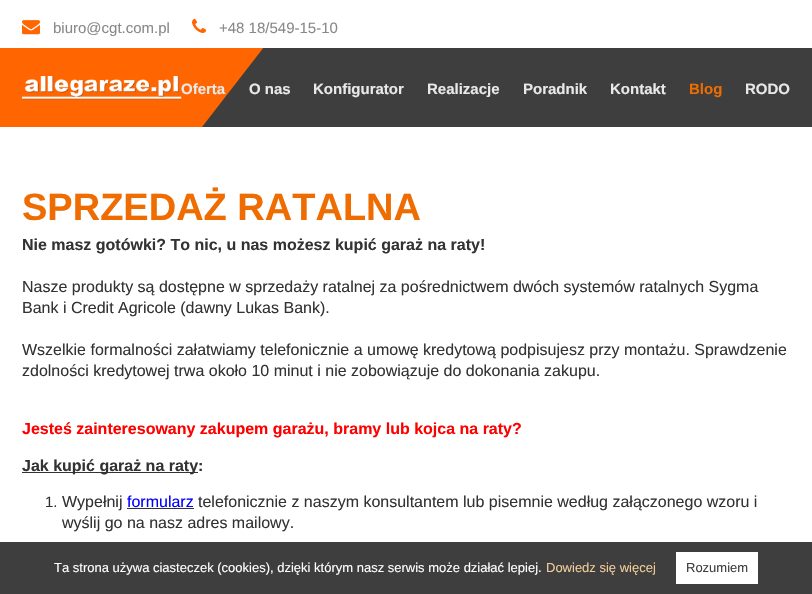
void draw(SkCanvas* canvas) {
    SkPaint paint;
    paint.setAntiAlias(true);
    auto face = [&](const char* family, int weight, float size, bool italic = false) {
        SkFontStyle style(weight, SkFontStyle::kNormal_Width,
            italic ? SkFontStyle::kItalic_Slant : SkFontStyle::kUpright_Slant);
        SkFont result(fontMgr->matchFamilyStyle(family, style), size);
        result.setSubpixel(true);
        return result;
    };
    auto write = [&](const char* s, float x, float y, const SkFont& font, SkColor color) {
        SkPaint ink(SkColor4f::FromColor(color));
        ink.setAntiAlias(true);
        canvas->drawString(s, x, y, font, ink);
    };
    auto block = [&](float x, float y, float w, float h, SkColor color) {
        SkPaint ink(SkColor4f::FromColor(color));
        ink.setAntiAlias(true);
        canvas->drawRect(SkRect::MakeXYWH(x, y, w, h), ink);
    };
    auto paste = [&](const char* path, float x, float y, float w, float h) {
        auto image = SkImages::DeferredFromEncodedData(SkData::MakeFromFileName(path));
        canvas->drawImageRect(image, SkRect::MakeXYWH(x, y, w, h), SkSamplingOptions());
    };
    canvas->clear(SK_ColorWHITE);
    paste("pic1.png", 22, 20, 18, 15);
    auto kFont1 = face("Arimo", 400, 15);
    write("biuro@cgt.com.pl", 53, 33, kFont1, SkColorSetRGB(137, 137, 137));
    paste("pic2.png", 192, 18, 15, 15);
    write("+48 18/549-15-10", 219, 33, kFont1, SkColorSetRGB(137, 137, 137));
    paste("pic3.png", 0, 48, 812, 79);
    paste("pic4.png", 81, 48, 183, 79);
    paste("pic5.png", 22, 76, 160, 24);
    auto kFont2 = face("Arimo", 700, 15);
    write("Oferta", 181, 94, kFont2, SkColorSetRGB(232, 232, 232));
    write("O nas", 249, 94, kFont2, SkColorSetRGB(232, 232, 232));
    write("Konfigurator", 313, 94, kFont2, SkColorSetRGB(232, 232, 232));
    write("Realizacje", 427, 94, kFont2, SkColorSetRGB(232, 232, 232));
    write("Poradnik", 523, 94, kFont2, SkColorSetRGB(232, 232, 232));
    write("Kontakt", 610, 94, kFont2, SkColorSetRGB(232, 232, 232));
    write("Blog", 689, 94, kFont2, SkColorSetRGB(239, 108, 0));
    write("RODO", 745, 94, kFont2, SkColorSetRGB(232, 232, 232));
    auto kFont3 = face("Arimo", 700, 38);
    write("SPRZEDAŻ RATALNA", 22, 220, kFont3, SkColorSetRGB(239, 108, 0));
    auto kFont4 = face("Liberation Sans", 700, 16);
    write("Nie masz gotówki? To nic, u nas możesz kupić garaż na raty!", 22, 250, kFont4, SkColorSetRGB(51, 51, 51));
    auto kFont5 = face("Liberation Sans", 400, 16);
    write("Nasze produkty są dostępne w sprzedaży ratalnej za pośrednictwem dwóch systemów ratalnych Sygma", 22, 292, kFont5, SkColorSetRGB(51, 51, 51));
    write("Bank i Credit Agricole (dawny Lukas Bank).", 22, 313, kFont5, SkColorSetRGB(51, 51, 51));
    write("Wszelkie formalności załatwiamy telefonicznie a umowę kredytową podpisujesz przy montażu. Sprawdzenie", 22, 355, kFont5, SkColorSetRGB(51, 51, 51));
    write("zdolności kredytowej trwa około 10 minut i nie zobowiązuje do dokonania zakupu.", 22, 376, kFont5, SkColorSetRGB(51, 51, 51));
    write("Jesteś zainteresowany zakupem garażu, bramy lub kojca na raty?", 22, 434, kFont4, SkColorSetRGB(255, 0, 0));
    block(22, 472, 176, 1, SkColorSetRGB(51, 51, 51));
    write("Jak kupić garaż na raty:", 22, 471, kFont4, SkColorSetRGB(51, 51, 51));
    write("1.", 45, 507, kFont1, SkColorSetRGB(51, 51, 51));
    write("Wypełnij", 62, 507, kFont5, SkColorSetRGB(51, 51, 51));
    write("formularz", 127, 507, kFont5, SkColorSetRGB(0, 0, 255));
    block(127, 508, 67, 1, SkColorSetRGB(51, 51, 51));
    write("telefonicznie z naszym konsultantem lub pisemnie według załączonego wzoru i", 198, 507, kFont5, SkColorSetRGB(51, 51, 51));
    write("wyślij go na nasz adres mailowy.", 62, 528, kFont5, SkColorSetRGB(51, 51, 51));
    block(0, 542, 812, 52, SkColorSetRGB(62, 62, 62));
    auto kFont6 = face("Arimo", 400, 13);
    write("Ta strona używa ciasteczek (cookies), dzięki którym nasz serwis może działać lepiej.", 54, 572, kFont6, SK_ColorWHITE);
    write("Dowiedz się więcej", 546, 572, kFont6, SkColorSetRGB(240, 203, 152));
    block(676, 552, 82, 32, SK_ColorWHITE);
    write("Rozumiem", 686, 572, kFont6, SkColorSetRGB(62, 62, 62));
}
